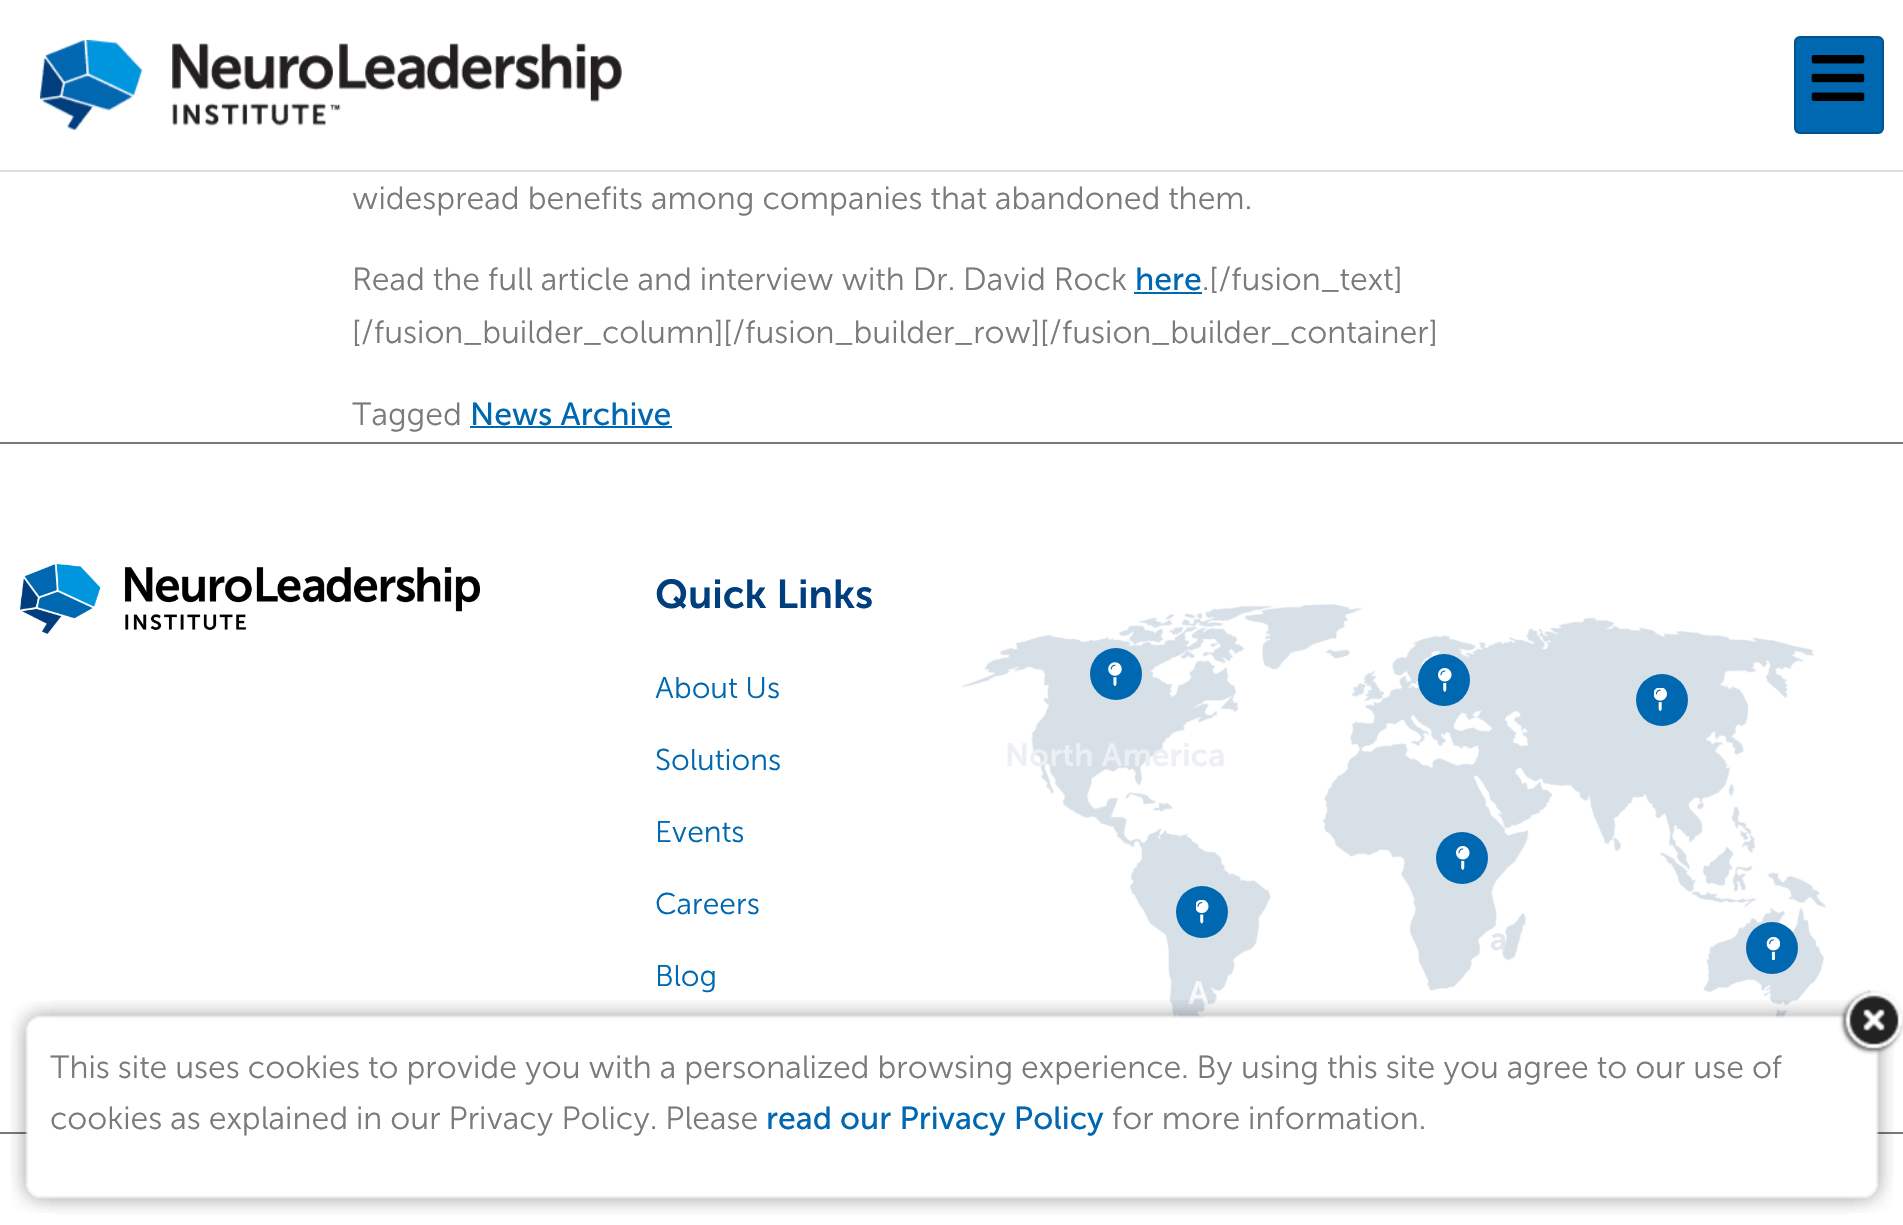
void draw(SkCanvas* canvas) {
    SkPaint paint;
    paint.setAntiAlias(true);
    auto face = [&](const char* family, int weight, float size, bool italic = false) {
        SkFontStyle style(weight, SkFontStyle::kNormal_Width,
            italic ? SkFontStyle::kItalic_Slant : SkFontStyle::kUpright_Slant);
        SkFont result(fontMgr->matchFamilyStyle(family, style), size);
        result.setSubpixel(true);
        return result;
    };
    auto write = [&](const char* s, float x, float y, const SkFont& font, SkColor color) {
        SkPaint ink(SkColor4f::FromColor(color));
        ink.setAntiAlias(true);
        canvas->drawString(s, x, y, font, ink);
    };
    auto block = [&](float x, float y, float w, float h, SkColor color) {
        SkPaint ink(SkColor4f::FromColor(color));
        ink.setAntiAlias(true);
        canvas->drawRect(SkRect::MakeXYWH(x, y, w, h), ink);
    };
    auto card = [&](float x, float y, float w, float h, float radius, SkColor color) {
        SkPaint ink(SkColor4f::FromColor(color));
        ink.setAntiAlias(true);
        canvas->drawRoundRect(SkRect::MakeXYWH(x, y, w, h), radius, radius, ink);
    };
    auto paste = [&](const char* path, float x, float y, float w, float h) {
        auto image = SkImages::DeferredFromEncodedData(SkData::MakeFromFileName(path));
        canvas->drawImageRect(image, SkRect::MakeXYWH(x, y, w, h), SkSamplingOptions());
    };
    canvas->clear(SK_ColorWHITE);
    block(0, 170, 1903, 2, SkColorSetRGB(221, 221, 221));
    paste("pic1.png", 40, 40, 582, 90);
    card(1794, 36, 90, 98, 6, SkColorSetRGB(0, 103, 177));
    paint.setStyle(SkPaint::kStroke_Style);
    paint.setStrokeWidth(2);
    paint.setColor(SkColorSetARGB(51, 0, 0, 0));
    canvas->drawRoundRect(SkRect::MakeXYWH(1795, 37, 88, 96), 5, 5, paint);
    paste("pic2.png", 1811, 55, 54, 46);
    auto kFont1 = face("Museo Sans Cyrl", 300, 32);
    write("widespread benefits among companies that abandoned them.", 352, 209, kFont1, SkColorSetRGB(122, 122, 122));
    write("Read the full article and interview with Dr. David Rock", 352, 290, kFont1, SkColorSetRGB(122, 122, 122));
    auto kFont2 = face("Museo Sans", 400, 32);
    write("here", 1135, 290, kFont2, SkColorSetRGB(0, 103, 177));
    block(1134, 292, 68, 2, SkColorSetRGB(0, 103, 177));
    write(".[/fusion_text]", 1202, 290, kFont1, SkColorSetRGB(122, 122, 122));
    write("[/fusion_builder_column][/fusion_builder_row][/fusion_builder_container]", 352, 343, kFont1, SkColorSetRGB(122, 122, 122));
    write("Tagged", 352, 425, kFont1, SkColorSetRGB(122, 122, 122));
    write("News Archive", 470, 425, kFont2, SkColorSetRGB(0, 103, 177));
    block(470, 426, 202, 2, SkColorSetRGB(0, 103, 177));
    block(0, 442, 1903, 2, SkColorSetRGB(122, 122, 122));
    block(0, 1132, 1903, 2, SkColorSetRGB(122, 122, 122));
    paste("pic3.png", 20, 564, 460, 70);
    auto kFont3 = face("Museo Sans Cyrl", 600, 40);
    write("Quick Links", 655, 608, kFont3, SkColorSetRGB(0, 62, 126));
    auto kFont4 = face("Museo Sans Cyrl", 300, 30);
    write("About Us", 655, 698, kFont4, SkColorSetRGB(0, 103, 177));
    write("Solutions", 655, 770, kFont4, SkColorSetRGB(0, 103, 177));
    write("Events", 655, 842, kFont4, SkColorSetRGB(0, 103, 177));
    write("Careers", 655, 914, kFont4, SkColorSetRGB(0, 103, 177));
    write("Blog", 655, 986, kFont4, SkColorSetRGB(0, 103, 177));
    paste("pic4.png", 961, 604, 911, 415);
    paint.setStyle(SkPaint::kFill_Style);
    paint.setColor(SkColorSetRGB(0, 103, 177));
    canvas->drawCircle(1444, 680, 26, paint);
    paste("pic5.png", 1438, 668, 14, 24);
    canvas->drawCircle(1662, 700, 26, paint);
    paste("pic6.png", 1654, 688, 13, 24);
    canvas->drawCircle(1116, 674, 26, paint);
    paste("pic7.png", 1108, 662, 14, 24);
    auto kFont5 = face("Museo Sans Cyrl", 600, 32);
    write("North America", 1005, 766, kFont5, SkColorSetRGB(236, 239, 243));
    canvas->drawCircle(1462, 858, 26, paint);
    paste("pic5.png", 1456, 846, 14, 24);
    write("a", 1490, 950, kFont5, SkColorSetRGB(225, 231, 237));
    canvas->drawCircle(1772, 948, 26, paint);
    paste("pic8.png", 1766, 936, 14, 24);
    canvas->drawCircle(1202, 912, 26, paint);
    paste("pic9.png", 1196, 900, 13, 24);
    write("A", 1188, 1004, kFont5, SkColorSetRGB(248, 249, 251));
    paste("pic10.png", 11, 1001, 39, 41);
    paste("pic11.png", 50, 1000, 1804, 42);
    paste("pic12.png", 1854, 1001, 39, 41);
    paste("pic13.png", 10, 1042, 40, 134);
    block(50, 1132, 1804, 2, SK_ColorWHITE);
    paste("pic15.png", 1854, 1042, 40, 134);
    paste("pic14.png", 1839, 990, 64, 65);
    write("This site uses cookies to provide you with a personalized browsing experience. By using this site you agree to our use of", 50, 1078, kFont1, SkColorSetRGB(122, 122, 122));
    write("cookies as explained in our Privacy Policy. Please", 50, 1129, kFont1, SkColorSetRGB(122, 122, 122));
    write("read our Privacy Policy", 766, 1129, kFont2, SkColorSetRGB(0, 103, 177));
    write("for more information.", 1112, 1129, kFont1, SkColorSetRGB(122, 122, 122));
    paste("pic16.png", 11, 1176, 39, 37);
    paste("pic17.png", 50, 1176, 1804, 38);
    paste("pic18.png", 1854, 1176, 39, 37);
}
